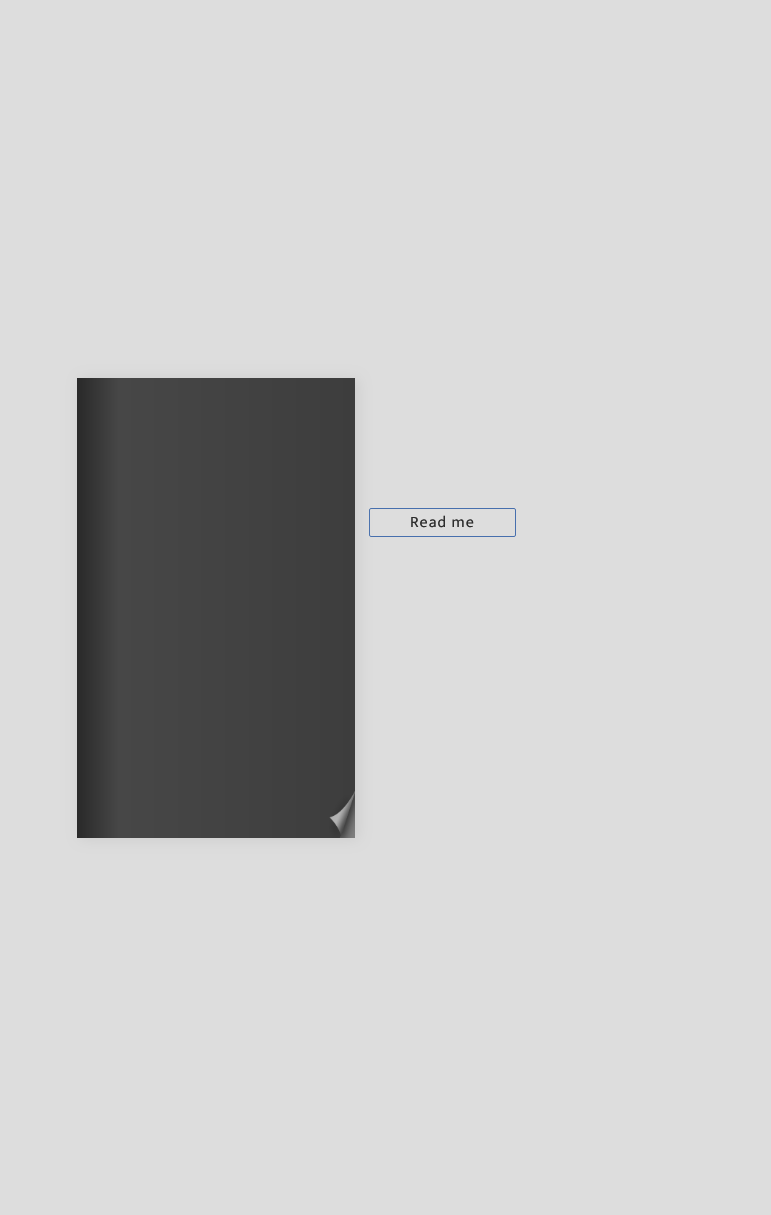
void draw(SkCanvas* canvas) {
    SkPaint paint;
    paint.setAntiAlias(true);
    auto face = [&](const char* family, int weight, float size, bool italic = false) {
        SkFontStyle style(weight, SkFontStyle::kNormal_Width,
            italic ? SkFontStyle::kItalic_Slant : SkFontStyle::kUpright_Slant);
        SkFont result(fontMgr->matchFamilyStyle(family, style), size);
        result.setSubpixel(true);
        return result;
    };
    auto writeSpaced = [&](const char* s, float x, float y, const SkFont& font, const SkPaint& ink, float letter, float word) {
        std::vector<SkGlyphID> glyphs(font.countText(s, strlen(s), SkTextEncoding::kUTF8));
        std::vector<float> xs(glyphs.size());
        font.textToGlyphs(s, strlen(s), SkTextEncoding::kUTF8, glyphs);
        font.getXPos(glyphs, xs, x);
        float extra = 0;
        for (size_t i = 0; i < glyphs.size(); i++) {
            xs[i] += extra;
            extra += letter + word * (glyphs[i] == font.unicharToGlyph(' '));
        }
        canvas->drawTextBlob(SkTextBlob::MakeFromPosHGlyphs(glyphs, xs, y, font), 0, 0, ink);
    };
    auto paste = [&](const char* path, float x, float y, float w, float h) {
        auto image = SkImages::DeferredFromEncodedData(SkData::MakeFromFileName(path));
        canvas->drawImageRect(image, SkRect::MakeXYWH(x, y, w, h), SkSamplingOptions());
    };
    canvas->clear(SkColorSetRGB(221, 221, 221));
    paint.setStyle(SkPaint::kStroke_Style);
    paint.setStrokeWidth(1);
    paint.setColor(SkColorSetRGB(71, 111, 173));
    canvas->drawRoundRect(SkRect::MakeXYWH(369.5f, 508.5f, 146, 28), 1.5f, 1.5f, paint);
    paint.setStyle(SkPaint::kFill_Style);
    paint.setColor(SkColorSetRGB(204, 204, 204));
    paint.setMaskFilter(SkMaskFilter::MakeBlur(kNormal_SkBlurStyle, 6.5f));
    canvas->drawRect(SkRect::MakeXYWH(80, 379, 278, 460), paint);
    paint.setMaskFilter(nullptr);
    {
        const SkColor colors[] = {SkColorSetRGB(41, 41, 41), SkColorSetRGB(71, 71, 71), SkColorSetRGB(61, 61, 61)};
        const float stops[] = {0, 0.15f, 1};
        const SkPoint ends[] = {{77, 608}, {355, 608}};
        paint.setShader(SkGradientShader::MakeLinear(ends, colors, stops, 3, SkTileMode::kClamp));
        paint.setAlpha(255);
    }
    canvas->drawRect(SkRect::MakeXYWH(77, 378, 278, 460), paint);
    paste("pic1.png", 329, 791, 26, 47);
    auto kFont1 = face("Ek Mukta", 400, 16);
    paint.setShader(nullptr);
    paint.setColor(SkColorSetRGB(44, 44, 44));
    writeSpaced("Read me", 410, 527, kFont1, paint, 1, 0);
}
